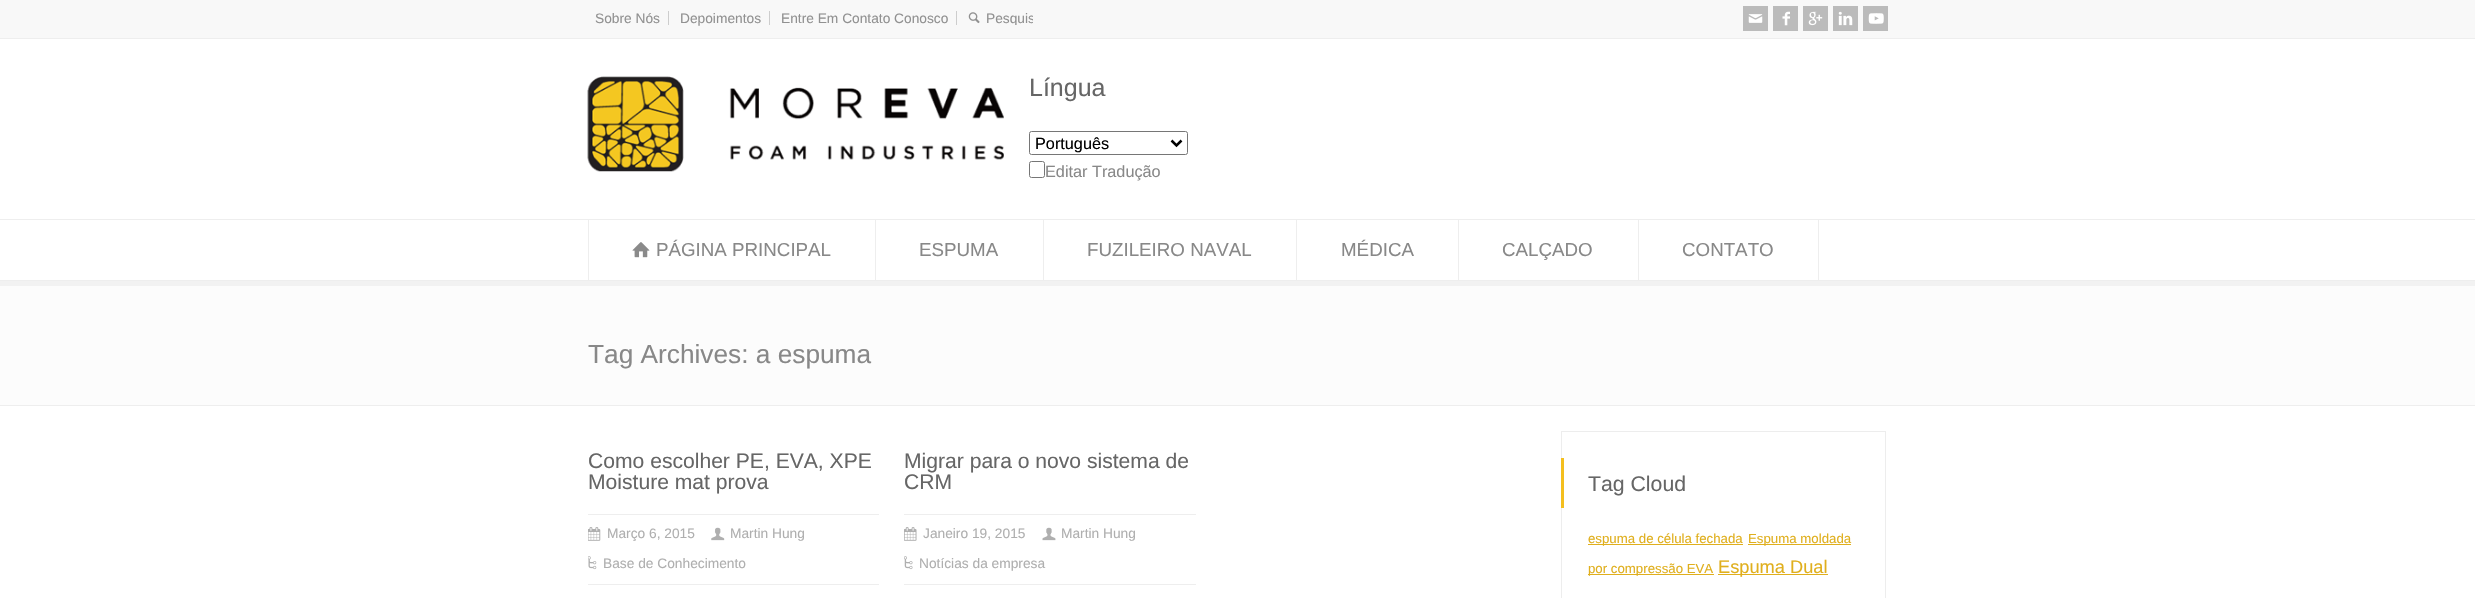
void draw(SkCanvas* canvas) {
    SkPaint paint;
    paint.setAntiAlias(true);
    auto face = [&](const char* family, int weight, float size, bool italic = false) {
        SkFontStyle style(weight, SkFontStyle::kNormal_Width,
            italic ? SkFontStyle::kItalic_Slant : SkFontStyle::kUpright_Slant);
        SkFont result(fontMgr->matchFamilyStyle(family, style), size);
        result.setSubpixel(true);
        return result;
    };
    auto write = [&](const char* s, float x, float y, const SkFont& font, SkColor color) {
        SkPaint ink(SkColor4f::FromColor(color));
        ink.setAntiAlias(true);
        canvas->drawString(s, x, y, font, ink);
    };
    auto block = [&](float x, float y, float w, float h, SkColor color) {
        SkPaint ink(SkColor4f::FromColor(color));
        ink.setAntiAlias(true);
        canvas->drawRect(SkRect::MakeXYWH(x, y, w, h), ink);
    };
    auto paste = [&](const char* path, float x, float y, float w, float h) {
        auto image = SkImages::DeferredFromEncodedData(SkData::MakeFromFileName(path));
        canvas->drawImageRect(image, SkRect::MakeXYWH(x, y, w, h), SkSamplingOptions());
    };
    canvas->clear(SK_ColorWHITE);
    block(0, 0, 2475, 38, SkColorSetRGB(248, 248, 248));
    block(0, 38, 2475, 1, SkColorSetRGB(238, 238, 238));
    block(668, 11, 1, 14, SkColorSetRGB(205, 205, 205));
    auto kFont1 = face("Liberation Sans", 400, 13.75f);
    write("Sobre Nós", 595, 23, kFont1, SkColorSetRGB(145, 145, 145));
    block(769, 11, 1, 14, SkColorSetRGB(205, 205, 205));
    write("Depoimentos", 680, 23, kFont1, SkColorSetRGB(145, 145, 145));
    block(956, 11, 1, 14, SkColorSetRGB(205, 205, 205));
    write("Entre Em Contato Conosco", 781, 23, kFont1, SkColorSetRGB(145, 145, 145));
    paste("pic1.png", 968, 12, 12, 12);
    canvas->save();
    canvas->clipRect(SkRect::MakeXYWH(986, 10, 47, 15));
    write("Pesquis", 986, 23, kFont1, SkColorSetRGB(145, 145, 145));
    canvas->restore();
    block(1743, 6, 25, 25, SkColorSetRGB(187, 187, 187));
    paste("pic2.png", 1748, 14, 15, 9);
    block(1773, 6, 25, 25, SkColorSetRGB(187, 187, 187));
    paste("pic3.png", 1782, 11, 8, 15);
    block(1803, 6, 25, 25, SkColorSetRGB(187, 187, 187));
    paste("pic4.png", 1808, 11, 15, 15);
    block(1833, 6, 25, 25, SkColorSetRGB(187, 187, 187));
    paste("pic5.png", 1838, 11, 15, 15);
    block(1863, 6, 25, 25, SkColorSetRGB(187, 187, 187));
    paste("pic6.png", 1868, 13, 16, 11);
    paste("pic7.png", 587, 76, 417, 96);
    auto kFont2 = face("Liberation Sans", 400, 25);
    write("Língua", 1029, 96, kFont2, SkColorSetRGB(102, 102, 102));
    paint.setStyle(SkPaint::kStroke_Style);
    paint.setStrokeWidth(1);
    paint.setColor(SkColorSetRGB(118, 118, 118));
    canvas->drawRoundRect(SkRect::MakeXYWH(1029.5f, 131.5f, 158, 23), 2, 2, paint);
    paint.setStrokeWidth(2.5f);
    paint.setColor(SK_ColorBLACK);
    canvas->drawPath(SkPathBuilder().moveTo(1171.5f, 140.5f).lineTo(1176.5f, 145.5f).lineTo(1181.5f, 140.5f).detach(), paint);
    auto kFont3 = face("Liberation Sans", 400, 16.25f);
    write("Português", 1035, 149, kFont3, SK_ColorBLACK);
    paint.setStrokeWidth(1);
    paint.setColor(SkColorSetRGB(118, 118, 118));
    canvas->drawRoundRect(SkRect::MakeXYWH(1029.5f, 161.5f, 15, 16), 2, 2, paint);
    write("Editar Tradução", 1045, 177, kFont3, SkColorSetRGB(136, 136, 136));
    block(0, 281, 2475, 5, SkColorSetRGB(242, 242, 242));
    block(0, 219, 2475, 1, SkColorSetRGB(238, 238, 238));
    block(0, 280, 2475, 1, SkColorSetRGB(238, 238, 238));
    block(875, 220, 1, 60, SkColorSetRGB(238, 238, 238));
    block(588, 220, 1, 60, SkColorSetRGB(238, 238, 238));
    paste("pic8.png", 632, 242, 18, 16);
    auto kFont4 = face("Liberation Sans", 400, 18.75f);
    write("PÁGINA PRINCIPAL", 656, 256, kFont4, SkColorSetRGB(136, 136, 136));
    block(1043, 220, 1, 60, SkColorSetRGB(238, 238, 238));
    write("ESPUMA", 919, 256, kFont4, SkColorSetRGB(136, 136, 136));
    block(1296, 220, 1, 60, SkColorSetRGB(238, 238, 238));
    write("FUZILEIRO NAVAL", 1087, 256, kFont4, SkColorSetRGB(136, 136, 136));
    block(1458, 220, 1, 60, SkColorSetRGB(238, 238, 238));
    write("MÉDICA", 1341, 256, kFont4, SkColorSetRGB(136, 136, 136));
    block(1638, 220, 1, 60, SkColorSetRGB(238, 238, 238));
    write("CALÇADO", 1502, 256, kFont4, SkColorSetRGB(136, 136, 136));
    block(1818, 220, 1, 60, SkColorSetRGB(238, 238, 238));
    write("CONTATO", 1682, 256, kFont4, SkColorSetRGB(136, 136, 136));
    block(0, 286, 2475, 119, SkColorSetRGB(252, 252, 252));
    block(0, 405, 2475, 1, SkColorSetRGB(238, 238, 238));
    auto kFont5 = face("Liberation Sans", 400, 26.25f);
    write("Tag Archives: a espuma", 588, 363, kFont5, SkColorSetRGB(136, 136, 136));
    block(588, 584, 291, 1, SkColorSetRGB(238, 238, 238));
    auto kFont6 = face("Liberation Sans", 400, 21.1f);
    write("Como escolher PE, EVA, XPE", 588, 468, kFont6, SkColorSetRGB(102, 102, 102));
    write("Moisture mat prova", 588, 489, kFont6, SkColorSetRGB(102, 102, 102));
    block(588, 514, 291, 1, SkColorSetRGB(238, 238, 238));
    paste("pic9.png", 588, 527, 13, 14);
    write("Março 6, 2015", 607, 538, kFont1, SkColorSetRGB(175, 175, 175));
    paste("pic10.png", 711, 527, 14, 14);
    write("Martin Hung", 730, 538, kFont1, SkColorSetRGB(175, 175, 175));
    paste("pic11.png", 588, 556, 9, 14);
    write("Base de Conhecimento", 603, 568, kFont1, SkColorSetRGB(175, 175, 175));
    block(904, 584, 292, 1, SkColorSetRGB(238, 238, 238));
    write("Migrar para o novo sistema de", 904, 468, kFont6, SkColorSetRGB(102, 102, 102));
    write("CRM", 904, 489, kFont6, SkColorSetRGB(102, 102, 102));
    block(904, 514, 292, 1, SkColorSetRGB(238, 238, 238));
    paste("pic12.png", 904, 527, 13, 14);
    write("Janeiro 19, 2015", 923, 538, kFont1, SkColorSetRGB(175, 175, 175));
    paste("pic13.png", 1042, 527, 14, 14);
    write("Martin Hung", 1061, 538, kFont1, SkColorSetRGB(175, 175, 175));
    paste("pic14.png", 904, 556, 9, 14);
    write("Notícias da empresa", 919, 568, kFont1, SkColorSetRGB(175, 175, 175));
    paint.setColor(SkColorSetRGB(237, 237, 237));
    canvas->drawRect(SkRect::MakeXYWH(1561.5f, 431.5f, 324, 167), paint);
    block(1561, 458, 3, 50, SkColorSetRGB(244, 191, 30));
    auto kFont7 = face("Liberation Sans", 400, 21.25f);
    write("Tag Cloud", 1588, 491, kFont7, SkColorSetRGB(102, 102, 102));
    block(1588, 544, 155, 1, SkColorSetRGB(224, 175, 29));
    auto kFont8 = face("Liberation Sans", 400, 13.25f);
    write("espuma de célula fechada", 1588, 543, kFont8, SkColorSetRGB(224, 175, 29));
    block(1748, 544, 103, 1, SkColorSetRGB(224, 175, 29));
    write("Espuma moldada", 1748, 543, kFont8, SkColorSetRGB(224, 175, 29));
    block(1588, 574, 126, 1, SkColorSetRGB(224, 175, 29));
    write("por compressão EVA", 1588, 573, kFont8, SkColorSetRGB(224, 175, 29));
    block(1718, 574, 110, 1, SkColorSetRGB(224, 175, 29));
    auto kFont9 = face("Liberation Sans", 400, 18.25f);
    write("Espuma Dual", 1718, 573, kFont9, SkColorSetRGB(224, 175, 29));
}
